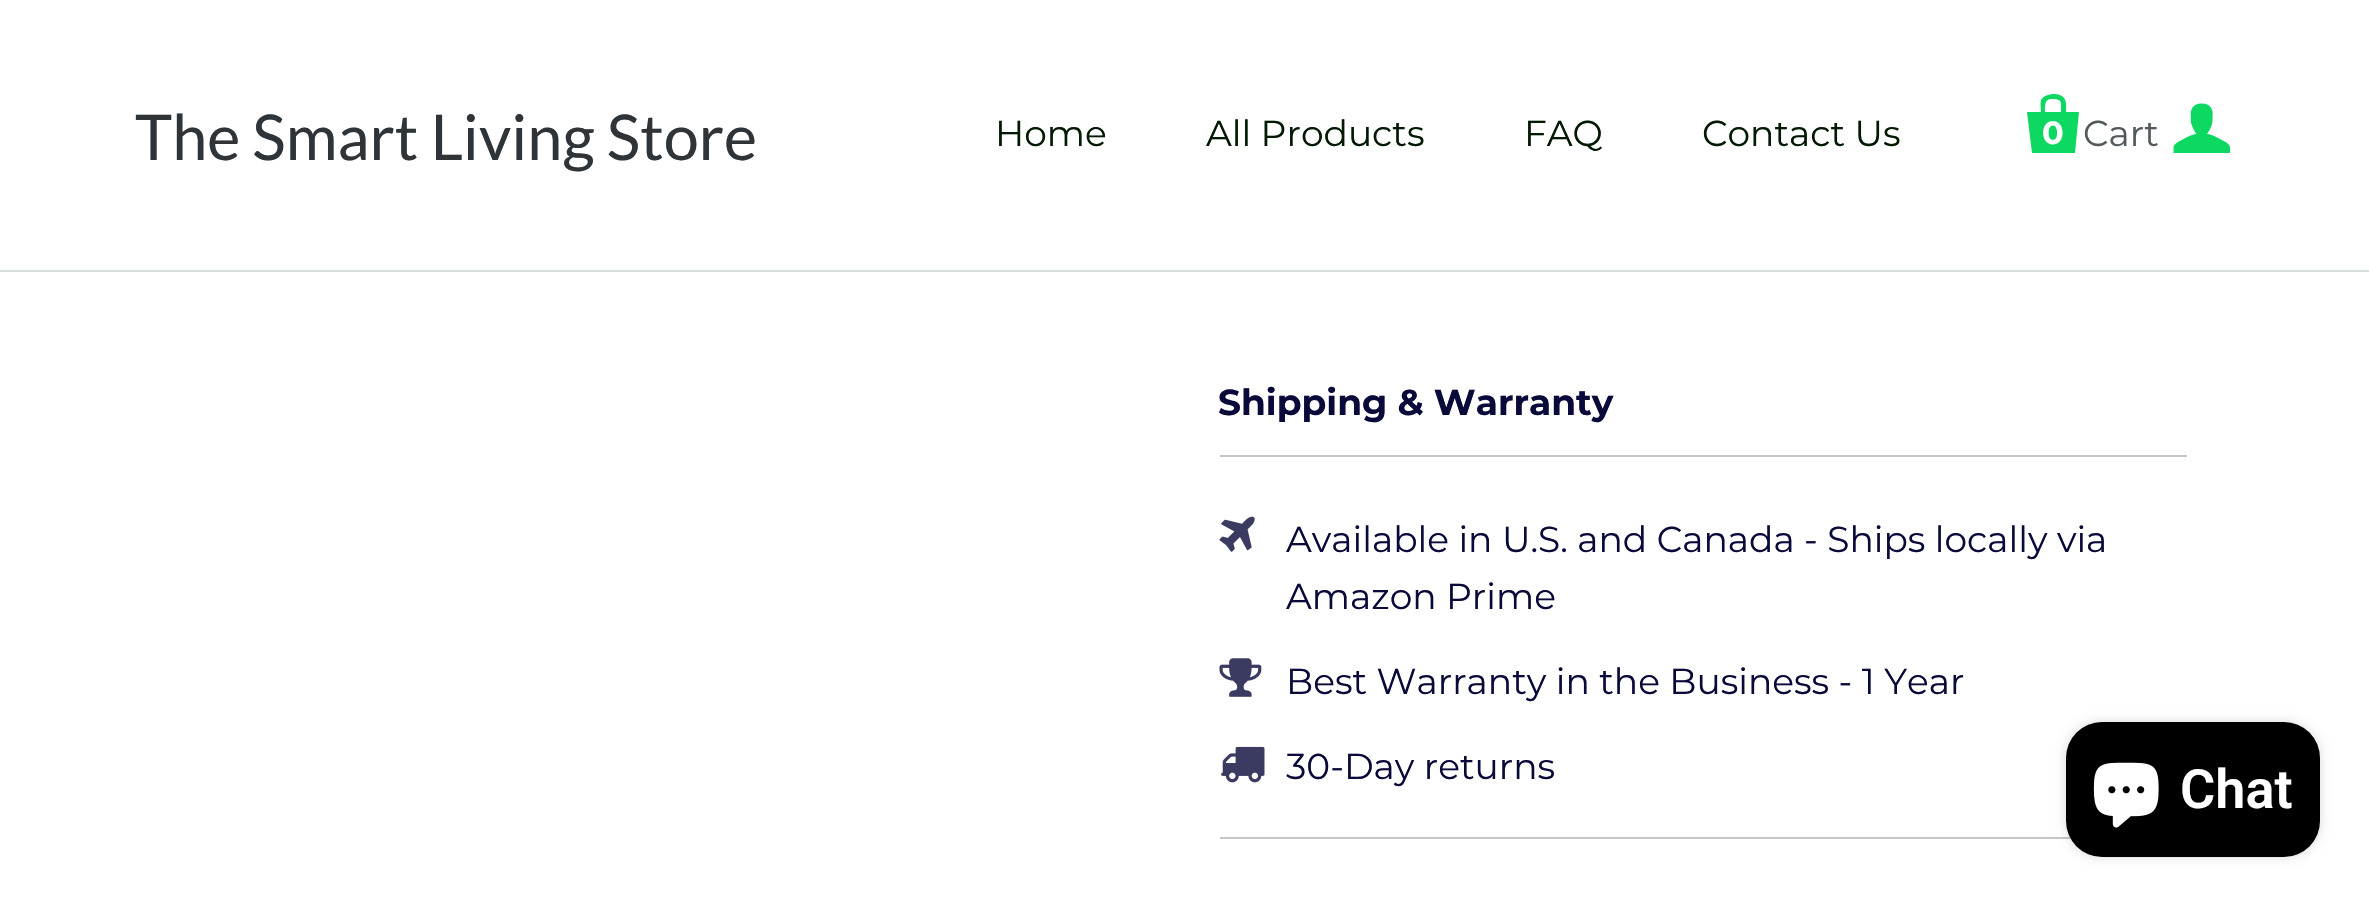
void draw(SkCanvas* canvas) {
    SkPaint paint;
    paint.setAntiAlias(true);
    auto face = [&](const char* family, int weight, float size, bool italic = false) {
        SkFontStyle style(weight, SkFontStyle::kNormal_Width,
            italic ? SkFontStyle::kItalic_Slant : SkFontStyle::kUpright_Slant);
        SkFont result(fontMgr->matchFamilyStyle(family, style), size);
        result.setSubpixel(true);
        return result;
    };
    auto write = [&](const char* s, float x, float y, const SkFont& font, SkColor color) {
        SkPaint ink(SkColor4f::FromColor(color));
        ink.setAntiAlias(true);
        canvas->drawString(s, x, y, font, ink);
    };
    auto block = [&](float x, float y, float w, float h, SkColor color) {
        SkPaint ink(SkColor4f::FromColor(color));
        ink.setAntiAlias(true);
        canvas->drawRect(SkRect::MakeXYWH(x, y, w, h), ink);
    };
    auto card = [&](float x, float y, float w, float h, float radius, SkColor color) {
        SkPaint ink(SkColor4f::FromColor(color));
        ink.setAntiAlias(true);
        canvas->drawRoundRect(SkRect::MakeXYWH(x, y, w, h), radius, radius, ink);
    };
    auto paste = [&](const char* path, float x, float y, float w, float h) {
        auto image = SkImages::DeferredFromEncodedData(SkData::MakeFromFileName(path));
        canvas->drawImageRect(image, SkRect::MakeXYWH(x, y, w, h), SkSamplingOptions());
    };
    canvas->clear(SK_ColorWHITE);
    block(0, 270, 2369, 2, SkColorSetRGB(215, 220, 222));
    auto kFont1 = face("Lato", 400, 63);
    write("The Smart Living Store", 135, 160, kFont1, SkColorSetRGB(46, 52, 56));
    auto kFont2 = face("Montserrat", 400, 36);
    write("Home", 995, 146, kFont2, SkColorSetRGB(2, 25, 3));
    write("All Products", 1206, 146, kFont2, SkColorSetRGB(2, 25, 3));
    write("FAQ", 1524, 146, kFont2, SkColorSetRGB(2, 25, 3));
    write("Contact Us", 1702, 146, kFont2, SkColorSetRGB(2, 25, 3));
    paint.setColor(SkColorSetRGB(13, 217, 98));
    canvas->drawPath(SkPathBuilder().moveTo(2051, 99).cubicTo(2044, 99, 2045, 108, 2045, 112).lineTo(2061, 112).cubicTo(2061, 102, 2063, 99, 2051, 99).close().moveTo(2066, 112).lineTo(2079, 112).lineTo(2075, 153).lineTo(2032, 153).lineTo(2027, 112).lineTo(2041, 112).cubicTo(2041, 109, 2040, 104, 2041, 100).cubicTo(2045, 93, 2060, 92, 2064, 98).cubicTo(2067, 102, 2066, 108, 2066, 112).close().detach(), paint);
    auto kFont3 = face("Montserrat", 700, 32);
    write("0", 2042, 144, kFont3, SK_ColorWHITE);
    write("Cart", 2083, 146, kFont2, SkColorSetRGB(81, 89, 93));
    paste("pic1.png", 2173, 103, 58, 50);
    auto kFont4 = face("Montserrat", 700, 36);
    write("Shipping & Warranty", 1218, 415, kFont4, SkColorSetRGB(10, 10, 58));
    block(1220, 455, 967, 2, SkColorSetRGB(198, 198, 198));
    paste("pic2.png", 1219, 516, 36, 36);
    write("Available in U.S. and Canada - Ships locally via", 1286, 552, kFont2, SkColorSetRGB(10, 10, 58));
    write("Amazon Prime", 1286, 609, kFont2, SkColorSetRGB(10, 10, 58));
    paste("pic3.png", 1219, 658, 43, 39);
    write("Best Warranty in the Business - 1 Year", 1286, 694, kFont2, SkColorSetRGB(10, 10, 58));
    paste("pic4.png", 1221, 746, 44, 37);
    write("30-Day returns", 1286, 779, kFont2, SkColorSetRGB(10, 10, 58));
    block(1220, 837, 851, 2, SkColorSetRGB(198, 198, 198));
    paint.setColor(SkColorSetARGB(38, 0, 0, 0));
    paint.setMaskFilter(SkMaskFilter::MakeBlur(kNormal_SkBlurStyle, 5.5f));
    canvas->drawRoundRect(SkRect::MakeXYWH(2066, 722, 254, 135), 36, 36, paint);
    paint.setMaskFilter(nullptr);
    card(2066, 722, 254, 135, 36, SK_ColorBLACK);
    paste("pic5.png", 2093, 762, 66, 66);
    auto kFont5 = face("Roboto", 600, 54);
    write("Chat", 2180, 808, kFont5, SK_ColorWHITE);
}
